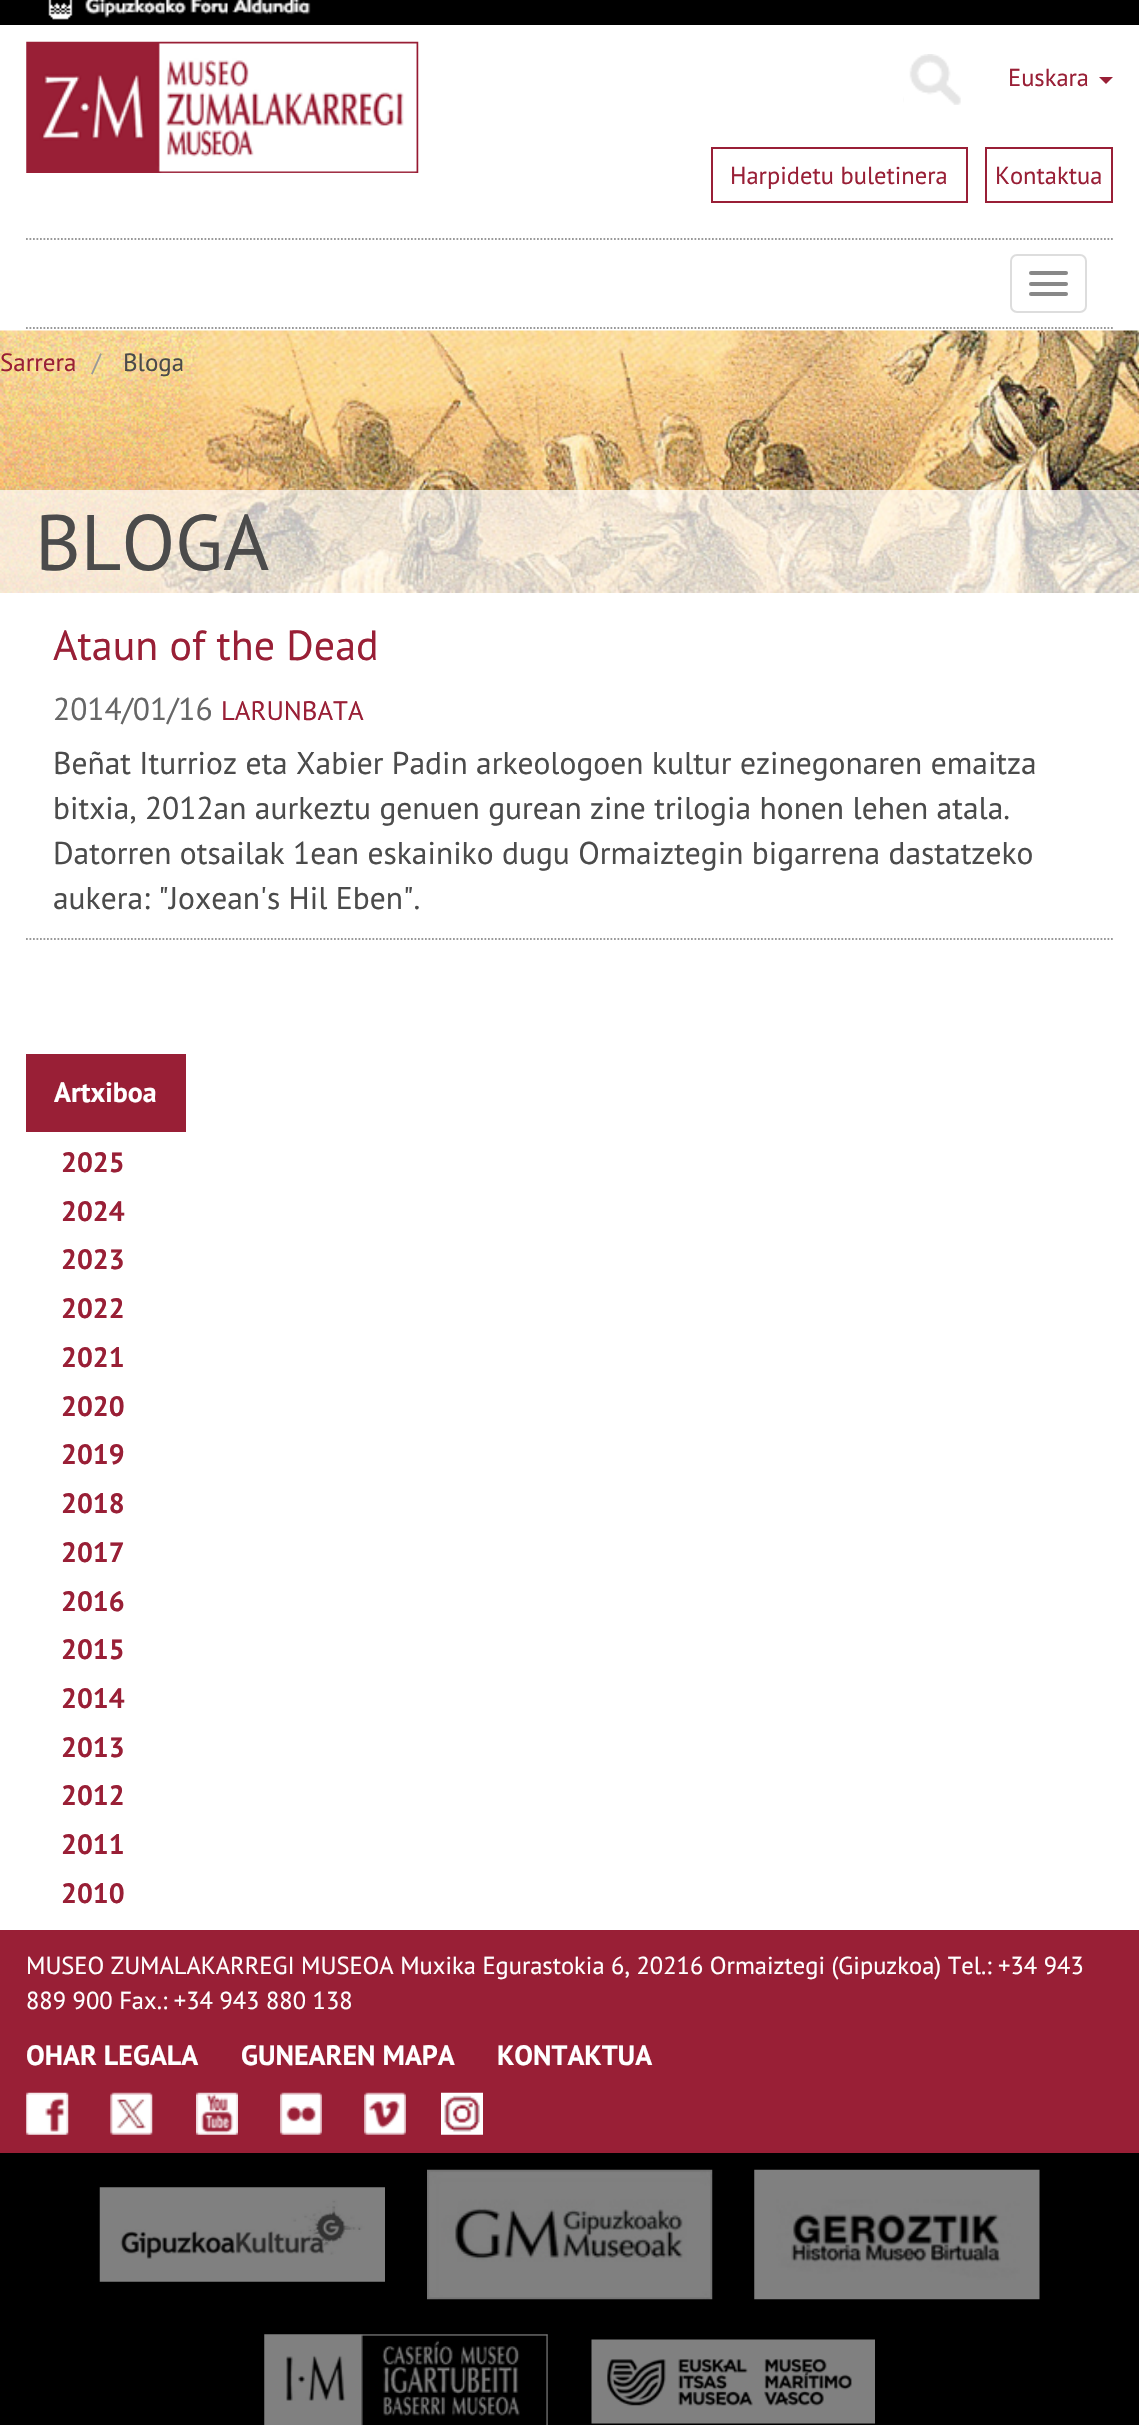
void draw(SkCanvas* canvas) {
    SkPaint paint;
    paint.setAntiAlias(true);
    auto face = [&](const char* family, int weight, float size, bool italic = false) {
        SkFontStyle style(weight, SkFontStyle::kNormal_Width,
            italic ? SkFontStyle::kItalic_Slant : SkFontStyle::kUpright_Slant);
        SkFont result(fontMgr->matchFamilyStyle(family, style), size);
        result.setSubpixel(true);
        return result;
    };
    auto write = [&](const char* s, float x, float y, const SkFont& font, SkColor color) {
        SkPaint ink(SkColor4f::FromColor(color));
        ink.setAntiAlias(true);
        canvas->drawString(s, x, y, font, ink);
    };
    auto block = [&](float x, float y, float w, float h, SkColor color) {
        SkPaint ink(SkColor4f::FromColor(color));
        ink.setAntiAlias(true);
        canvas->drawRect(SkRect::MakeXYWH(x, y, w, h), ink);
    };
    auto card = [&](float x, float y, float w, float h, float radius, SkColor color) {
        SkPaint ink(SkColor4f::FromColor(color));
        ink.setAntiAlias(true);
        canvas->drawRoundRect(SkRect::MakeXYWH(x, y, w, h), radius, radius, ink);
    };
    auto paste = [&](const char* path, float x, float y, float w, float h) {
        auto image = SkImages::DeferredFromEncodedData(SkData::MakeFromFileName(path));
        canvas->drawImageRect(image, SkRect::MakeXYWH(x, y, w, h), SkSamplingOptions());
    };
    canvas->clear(SK_ColorWHITE);
    block(0, 0, 1139, 25, SK_ColorBLACK);
    paste("pic1.png", 48, 0, 263, 20);
    paste("pic2.png", 26, 41, 393, 132);
    paste("pic3.png", 903, 54, 58, 51);
    auto kFont1 = face("PT Sans", 400, 24.5f);
    write("Euskara", 1008, 86, kFont1, SkColorSetRGB(153, 31, 54));
    paint.setColor(SkColorSetRGB(153, 31, 54));
    canvas->drawPath(SkPathBuilder().moveTo(1099, 77).lineTo(1113, 77).lineTo(1106, 84).close().detach(), paint);
    paint.setStyle(SkPaint::kStroke_Style);
    paint.setStrokeWidth(2);
    canvas->drawRect(SkRect::MakeXYWH(712, 148, 255, 54), paint);
    write("Harpidetu buletinera", 730, 184, kFont1, SkColorSetRGB(153, 31, 54));
    canvas->drawRect(SkRect::MakeXYWH(986, 148, 126, 54), paint);
    write("Kontaktua", 995, 184, kFont1, SkColorSetRGB(153, 31, 54));
    paint.setStrokeWidth(1.8f);
    paint.setColor(SkColorSetRGB(153, 153, 153));
    paint.setPathEffect(SkDashPathEffect::Make({{1.75f, 1.75f}}, 0));
    canvas->drawPath(SkPathBuilder().moveTo(26, 239).lineTo(1113, 239).detach(), paint);
    paint.setPathEffect(nullptr);
    paint.setPathEffect(SkDashPathEffect::Make({{1.75f, 1.75f}}, 0));
    canvas->drawPath(SkPathBuilder().moveTo(26, 328).lineTo(1113, 328).detach(), paint);
    paint.setPathEffect(nullptr);
    paint.setStrokeWidth(2);
    paint.setColor(SkColorSetRGB(221, 221, 221));
    canvas->drawRoundRect(SkRect::MakeXYWH(1011, 255, 75, 57), 6, 6, paint);
    card(1029, 271, 39, 4, 2, SkColorSetRGB(136, 136, 136));
    card(1029, 282, 39, 4, 2, SkColorSetRGB(136, 136, 136));
    card(1029, 292, 39, 4, 2, SkColorSetRGB(136, 136, 136));
    paste("pic4.png", 0, 330, 1139, 263);
    auto kFont2 = face("PT Sans", 400, 25);
    write("Sarrera", 0, 371, kFont2, SkColorSetRGB(153, 31, 54));
    write("/", 92, 371, kFont2, SkColorSetRGB(153, 153, 153));
    write("Bloga", 123, 371, kFont2, SkColorSetRGB(75, 75, 75));
    block(0, 490, 1139, 103, SkColorSetARGB(179, 255, 255, 255));
    auto kFont3 = face("PT Sans", 400, 78.5f);
    write("BLOGA", 35, 570, kFont3, SkColorSetRGB(75, 75, 75));
    paint.setStrokeWidth(1.8f);
    paint.setColor(SkColorSetRGB(153, 153, 153));
    paint.setPathEffect(SkDashPathEffect::Make({{1.75f, 1.75f}}, 0));
    canvas->drawPath(SkPathBuilder().moveTo(26, 939).lineTo(1113, 939).detach(), paint);
    paint.setPathEffect(nullptr);
    auto kFont4 = face("PT Sans", 400, 42);
    write("Ataun of the Dead", 53, 660, kFont4, SkColorSetRGB(153, 31, 54));
    auto kFont5 = face("PT Sans", 400, 31.5f);
    write("2014/01/16", 53, 720, kFont5, SkColorSetRGB(102, 102, 102));
    auto kFont6 = face("PT Sans", 400, 26.75f);
    write("LARUNBATA", 221, 720, kFont6, SkColorSetRGB(153, 31, 54));
    write("Beñat Iturrioz eta Xabier Padin arkeologoen kultur ezinegonaren emaitza", 53, 774, kFont5, SkColorSetRGB(75, 75, 75));
    write("bitxia, 2012an aurkeztu genuen gurean zine trilogia honen lehen atala.", 53, 819, kFont5, SkColorSetRGB(75, 75, 75));
    write("Datorren otsailak 1ean eskainiko dugu Ormaiztegin bigarrena dastatzeko", 53, 864, kFont5, SkColorSetRGB(75, 75, 75));
    write("aukera: \"Joxean's Hil Eben\".", 53, 909, kFont5, SkColorSetRGB(75, 75, 75));
    block(26, 1054, 160, 78, SkColorSetRGB(153, 31, 54));
    auto kFont7 = face("PT Sans", 700, 28);
    write("Artxiboa", 54, 1102, kFont7, SK_ColorWHITE);
    write("2025", 61, 1172, kFont7, SkColorSetRGB(153, 31, 54));
    write("2024", 61, 1221, kFont7, SkColorSetRGB(153, 31, 54));
    write("2023", 61, 1269, kFont7, SkColorSetRGB(153, 31, 54));
    write("2022", 61, 1318, kFont7, SkColorSetRGB(153, 31, 54));
    write("2021", 61, 1367, kFont7, SkColorSetRGB(153, 31, 54));
    write("2020", 61, 1416, kFont7, SkColorSetRGB(153, 31, 54));
    write("2019", 61, 1464, kFont7, SkColorSetRGB(153, 31, 54));
    write("2018", 61, 1513, kFont7, SkColorSetRGB(153, 31, 54));
    write("2017", 61, 1562, kFont7, SkColorSetRGB(153, 31, 54));
    write("2016", 61, 1611, kFont7, SkColorSetRGB(153, 31, 54));
    write("2015", 61, 1659, kFont7, SkColorSetRGB(153, 31, 54));
    write("2014", 61, 1708, kFont7, SkColorSetRGB(153, 31, 54));
    write("2013", 61, 1757, kFont7, SkColorSetRGB(153, 31, 54));
    write("2012", 61, 1805, kFont7, SkColorSetRGB(153, 31, 54));
    write("2011", 61, 1854, kFont7, SkColorSetRGB(153, 31, 54));
    write("2010", 61, 1903, kFont7, SkColorSetRGB(153, 31, 54));
    block(0, 1930, 1139, 223, SkColorSetRGB(153, 31, 54));
    write("MUSEO ZUMALAKARREGI MUSEOA Muxika Egurastokia 6, 20216 Ormaiztegi (Gipuzkoa) Tel.: +34 943", 26, 1974, kFont1, SK_ColorWHITE);
    write("889 900 Fax.: +34 943 880 138", 26, 2009, kFont1, SK_ColorWHITE);
    write("OHAR LEGALA", 26, 2065, kFont7, SK_ColorWHITE);
    write("GUNEAREN MAPA", 241, 2065, kFont7, SK_ColorWHITE);
    write("KONTAKTUA", 497, 2065, kFont7, SK_ColorWHITE);
    paste("pic5.png", 26, 2092, 43, 43);
    paste("pic6.png", 110, 2092, 43, 43);
    paste("pic7.png", 196, 2092, 42, 43);
    paste("pic8.png", 280, 2092, 42, 43);
    paste("pic9.png", 364, 2092, 42, 43);
    paste("pic10.png", 441, 2092, 42, 43);
    block(0, 2153, 1139, 272, SK_ColorBLACK);
    paste("pic11.png", 99, 2187, 286, 95);
    paste("pic12.png", 427, 2169, 286, 131);
    paste("pic13.png", 754, 2169, 286, 131);
    paste("pic14.png", 264, 2334, 284, 91);
    paste("pic15.png", 591, 2339, 284, 85);
}
